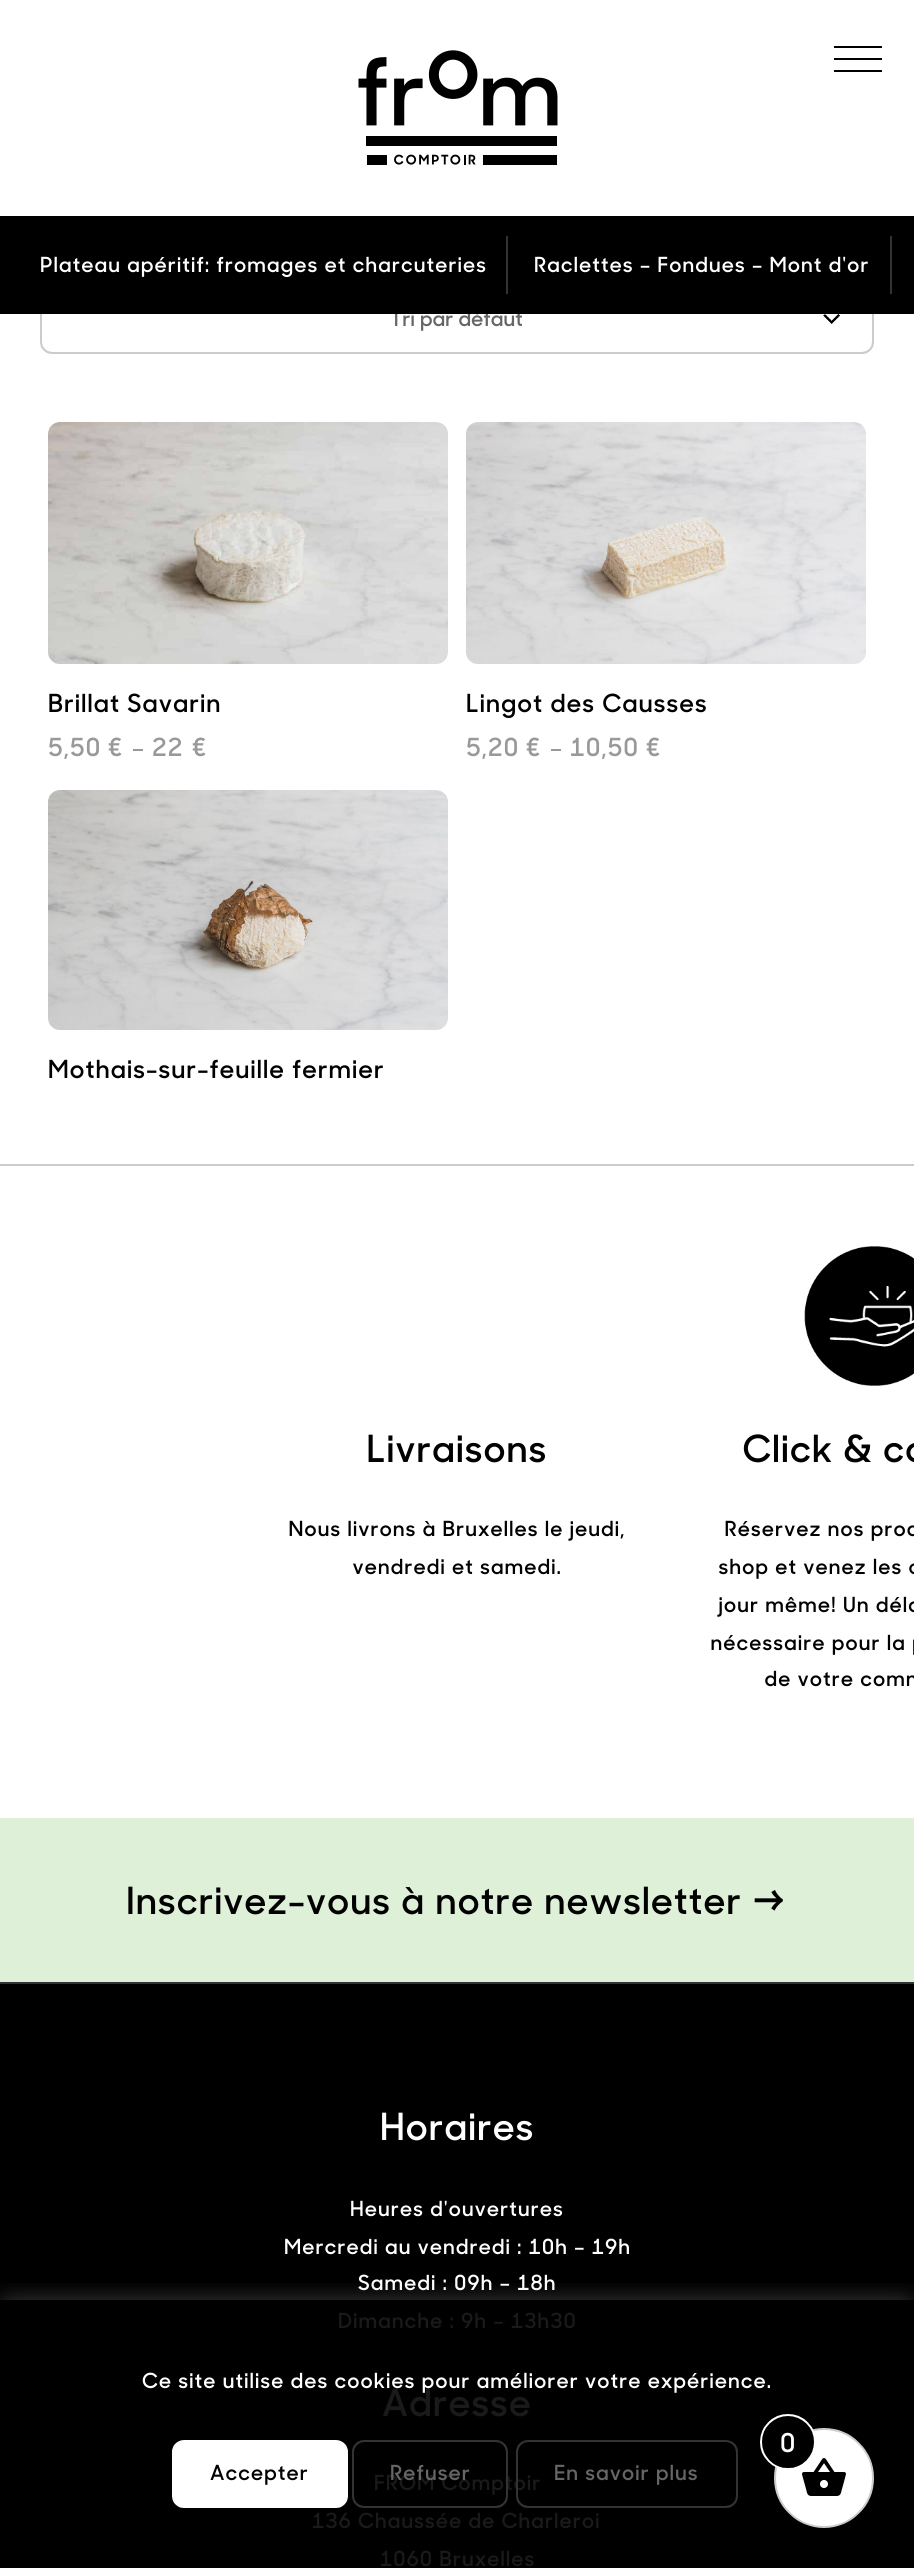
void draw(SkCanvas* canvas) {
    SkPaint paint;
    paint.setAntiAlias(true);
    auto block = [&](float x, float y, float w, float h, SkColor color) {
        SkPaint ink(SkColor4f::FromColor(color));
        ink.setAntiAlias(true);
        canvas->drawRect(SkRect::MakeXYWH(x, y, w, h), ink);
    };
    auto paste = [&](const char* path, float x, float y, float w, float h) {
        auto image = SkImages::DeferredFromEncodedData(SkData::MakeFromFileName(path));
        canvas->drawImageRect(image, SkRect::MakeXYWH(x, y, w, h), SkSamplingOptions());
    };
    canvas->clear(SK_ColorBLACK);
    block(0, 0, 914, 216, SK_ColorWHITE);
    paste("pic1.png", 358, 50, 200, 115);
    block(834, 46, 48, 2, SK_ColorBLACK);
    block(834, 58, 48, 2, SK_ColorBLACK);
    block(834, 70, 48, 2, SK_ColorBLACK);
    block(0, 314, 914, 850, SK_ColorWHITE);
    paste("pic4.png", 823, 314, 17, 10);
    paint.setStyle(SkPaint::kStroke_Style);
    paint.setStrokeWidth(2);
    paint.setColor(SkColorSetRGB(204, 204, 204));
    canvas->drawRoundRect(SkRect::MakeXYWH(41, 283, 832, 70), 11, 11, paint);
    block(40, 282, 834, 32, SK_ColorBLACK);
    block(506, 236, 2, 58, SkColorSetRGB(51, 51, 51));
    paste("pic2.png", 41, 256, 445, 21);
    block(890, 236, 2, 58, SkColorSetRGB(51, 51, 51));
    paste("pic3.png", 535, 256, 333, 17);
    paste("pic5.png", 395, 314, 127, 17);
    paste("pic6.png", 48, 422, 400, 242);
    paste("pic7.png", 49, 693, 171, 20);
    paste("pic8.png", 49, 737, 50, 22);
    paste("pic9.png", 108, 737, 14, 20);
    block(133, 749, 10, 2, SkColorSetRGB(153, 153, 153));
    paste("pic10.png", 153, 737, 29, 19);
    paste("pic9.png", 192, 737, 14, 20);
    paste("pic11.png", 466, 422, 400, 242);
    paste("pic12.png", 467, 693, 239, 26);
    paste("pic13.png", 467, 737, 50, 22);
    paste("pic9.png", 526, 737, 14, 20);
    block(551, 749, 10, 2, SkColorSetRGB(153, 153, 153));
    paste("pic14.png", 571, 737, 66, 22);
    paste("pic9.png", 646, 737, 14, 20);
    paste("pic15.png", 48, 790, 400, 240);
    paste("pic16.png", 49, 1059, 334, 20);
    block(0, 1166, 914, 652, SK_ColorWHITE);
    block(0, 1164, 914, 2, SkColorSetRGB(204, 204, 204));
    paste("pic17.png", 368, 1434, 177, 29);
    paste("pic18.png", 289, 1520, 335, 21);
    paste("pic19.png", 353, 1558, 207, 17);
    paste("pic20.png", 804, 1246, 110, 140);
    paste("pic21.png", 743, 1434, 171, 29);
    paste("pic22.png", 725, 1520, 189, 21);
    paste("pic23.png", 718, 1558, 196, 21);
    paste("pic24.png", 717, 1596, 197, 21);
    paste("pic25.png", 711, 1634, 203, 21);
    paste("pic26.png", 765, 1670, 149, 17);
    block(0, 1818, 914, 164, SkColorSetRGB(223, 240, 216));
    block(0, 1982, 914, 2, SkColorSetRGB(51, 51, 51));
    paste("pic27.png", 128, 1886, 655, 29);
    paste("pic28.png", 382, 2112, 151, 29);
    paste("pic29.png", 351, 2200, 212, 17);
    paste("pic30.png", 285, 2238, 344, 17);
    paste("pic31.png", 358, 2274, 197, 17);
    paste("pic32.png", 339, 2312, 236, 17);
    paste("pic33.png", 383, 2388, 147, 29);
    paste("pic34.png", 375, 2474, 165, 21);
    paste("pic35.png", 312, 2512, 287, 17);
    paste("pic36.png", 380, 2550, 154, 17);
    canvas->save();
    canvas->clipRect(SkRect::MakeXYWH(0, 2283, 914, 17));
    paint.setStyle(SkPaint::kFill_Style);
    paint.setColor(SkColorSetARGB(77, 172, 171, 171));
    paint.setMaskFilter(SkMaskFilter::MakeBlur(kNormal_SkBlurStyle, 10));
    canvas->drawRect(SkRect::MakeXYWH(0, 2298, 914, 268), paint);
    paint.setMaskFilter(nullptr);
    canvas->restore();
    paste("pic37.png", 142, 2372, 628, 21);
    paint.setColor(SK_ColorWHITE);
    canvas->drawRoundRect(SkRect::MakeXYWH(173, 2441, 174, 66), 11, 11, paint);
    paint.setStyle(SkPaint::kStroke_Style);
    canvas->drawRoundRect(SkRect::MakeXYWH(173, 2441, 174, 66), 11, 11, paint);
    paste("pic38.png", 210, 2464, 98, 21);
    paint.setColor(SkColorSetRGB(51, 51, 51));
    canvas->drawRoundRect(SkRect::MakeXYWH(353, 2441, 154, 66), 11, 11, paint);
    paste("pic39.png", 391, 2464, 79, 17);
    canvas->drawRoundRect(SkRect::MakeXYWH(517, 2441, 220, 66), 11, 11, paint);
    paste("pic40.png", 555, 2464, 142, 21);
    paint.setStyle(SkPaint::kFill_Style);
    paint.setColor(SK_ColorWHITE);
    canvas->drawCircle(824, 2478, 49, paint);
    paint.setStyle(SkPaint::kStroke_Style);
    paint.setColor(SkColorSetRGB(204, 204, 204));
    canvas->drawCircle(824, 2478, 49, paint);
    paste("pic42.png", 802, 2458, 44, 38);
    paint.setStyle(SkPaint::kFill_Style);
    paint.setColor(SK_ColorBLACK);
    canvas->drawCircle(788, 2442, 27, paint);
    paint.setStyle(SkPaint::kStroke_Style);
    paint.setColor(SK_ColorWHITE);
    canvas->drawCircle(788, 2442, 27, paint);
    paste("pic41.png", 781, 2432, 13, 21);
}
